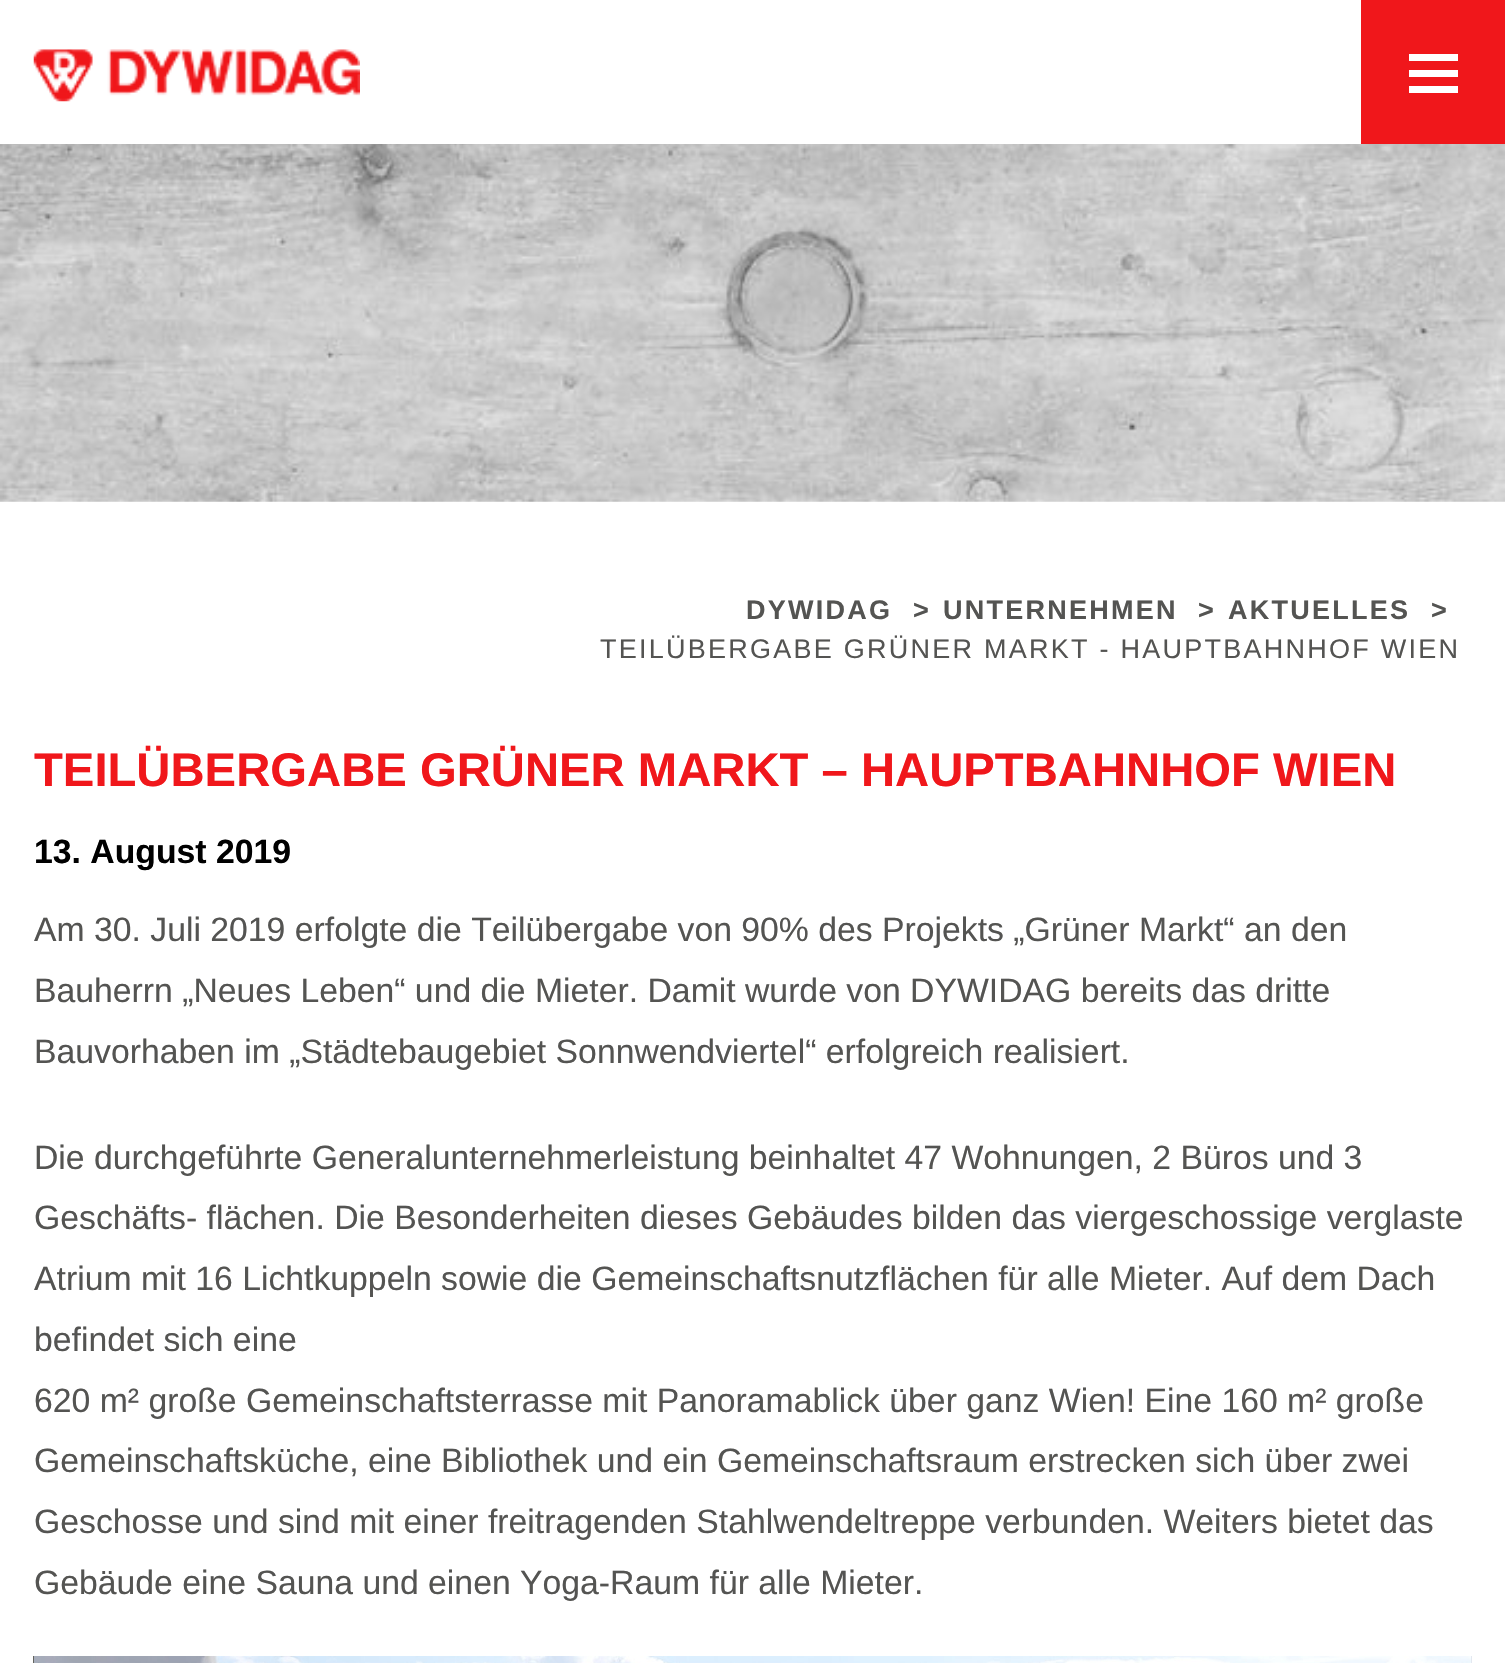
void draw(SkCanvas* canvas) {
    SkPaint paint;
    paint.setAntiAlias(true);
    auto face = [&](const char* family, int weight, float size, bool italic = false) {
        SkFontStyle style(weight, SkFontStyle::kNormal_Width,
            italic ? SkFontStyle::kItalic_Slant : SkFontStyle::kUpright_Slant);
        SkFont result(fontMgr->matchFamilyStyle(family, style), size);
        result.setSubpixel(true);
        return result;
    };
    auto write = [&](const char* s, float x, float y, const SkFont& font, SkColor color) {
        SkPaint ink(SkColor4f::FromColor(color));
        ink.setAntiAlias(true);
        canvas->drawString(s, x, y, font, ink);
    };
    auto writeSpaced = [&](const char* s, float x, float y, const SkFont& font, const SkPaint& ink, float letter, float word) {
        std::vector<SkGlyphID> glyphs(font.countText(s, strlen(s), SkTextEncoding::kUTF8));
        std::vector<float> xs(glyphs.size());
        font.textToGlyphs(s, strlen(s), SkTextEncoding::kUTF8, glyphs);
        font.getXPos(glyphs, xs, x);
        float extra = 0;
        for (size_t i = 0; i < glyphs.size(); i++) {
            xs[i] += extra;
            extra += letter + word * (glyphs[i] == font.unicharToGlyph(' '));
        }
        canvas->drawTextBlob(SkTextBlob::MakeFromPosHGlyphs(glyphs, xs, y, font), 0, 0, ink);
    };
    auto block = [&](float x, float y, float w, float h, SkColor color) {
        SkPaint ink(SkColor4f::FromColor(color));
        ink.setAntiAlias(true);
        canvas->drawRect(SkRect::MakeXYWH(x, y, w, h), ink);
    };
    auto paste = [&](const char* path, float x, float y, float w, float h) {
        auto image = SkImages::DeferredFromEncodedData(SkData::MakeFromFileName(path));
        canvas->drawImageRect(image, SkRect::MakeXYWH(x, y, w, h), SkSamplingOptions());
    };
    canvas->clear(SK_ColorWHITE);
    paste("pic1.png", 33, 49, 327, 53);
    block(1361, 0, 144, 144, SkColorSetRGB(240, 23, 27));
    block(1409, 54, 49, 7, SK_ColorWHITE);
    block(1409, 70, 49, 7, SK_ColorWHITE);
    block(1409, 86, 49, 7, SK_ColorWHITE);
    paste("pic2.png", 0, 144, 1505, 358);
    auto kFont1 = face("Liberation Sans", 700, 27);
    paint.setColor(SkColorSetRGB(84, 84, 82));
    writeSpaced("DYWIDAG", 746, 619, kFont1, paint, 2.25f, 0);
    writeSpaced(">", 913, 619, kFont1, paint, 2.25f, 0);
    writeSpaced("UNTERNEHMEN", 943, 619, kFont1, paint, 2.25f, 0);
    writeSpaced(">", 1198, 619, kFont1, paint, 2.25f, 0);
    writeSpaced("AKTUELLES", 1228, 619, kFont1, paint, 2.25f, 0);
    writeSpaced(">", 1431, 619, kFont1, paint, 2.25f, 0);
    auto kFont2 = face("Liberation Sans", 400, 27);
    writeSpaced("TEILÜBERGABE GRÜNER MARKT - HAUPTBAHNHOF WIEN", 600, 658, kFont2, paint, 2.25f, 0);
    auto kFont3 = face("Liberation Sans", 700, 47.25f);
    write("TEILÜBERGABE GRÜNER MARKT – HAUPTBAHNHOF WIEN", 34, 786, kFont3, SkColorSetRGB(240, 23, 27));
    auto kFont4 = face("Liberation Sans", 700, 33.75f);
    write("13. August 2019", 34, 863, kFont4, SK_ColorBLACK);
    auto kFont5 = face("Liberation Sans", 400, 33.75f);
    write("Am 30. Juli 2019 erfolgte die Teilübergabe von 90% des Projekts „Grüner Markt“ an den", 34, 941, kFont5, SkColorSetRGB(84, 84, 82));
    write("Bauherrn „Neues Leben“ und die Mieter. Damit wurde von DYWIDAG bereits das dritte", 34, 1002, kFont5, SkColorSetRGB(84, 84, 82));
    write("Bauvorhaben im „Städtebaugebiet Sonnwendviertel“ erfolgreich realisiert.", 34, 1063, kFont5, SkColorSetRGB(84, 84, 82));
    write("Die durchgeführte Generalunternehmerleistung beinhaltet 47 Wohnungen, 2 Büros und 3", 34, 1169, kFont5, SkColorSetRGB(84, 84, 82));
    write("Geschäfts- flächen. Die Besonderheiten dieses Gebäudes bilden das viergeschossige verglaste", 34, 1229, kFont5, SkColorSetRGB(84, 84, 82));
    write("Atrium mit 16 Lichtkuppeln sowie die Gemeinschaftsnutzflächen für alle Mieter. Auf dem Dach", 34, 1290, kFont5, SkColorSetRGB(84, 84, 82));
    write("befindet sich eine", 34, 1351, kFont5, SkColorSetRGB(84, 84, 82));
    write("620 m² große Gemeinschaftsterrasse mit Panoramablick über ganz Wien! Eine 160 m² große", 34, 1412, kFont5, SkColorSetRGB(84, 84, 82));
    write("Gemeinschaftsküche, eine Bibliothek und ein Gemeinschaftsraum erstrecken sich über zwei", 34, 1472, kFont5, SkColorSetRGB(84, 84, 82));
    write("Geschosse und sind mit einer freitragenden Stahlwendeltreppe verbunden. Weiters bietet das", 34, 1533, kFont5, SkColorSetRGB(84, 84, 82));
    write("Gebäude eine Sauna und einen Yoga-Raum für alle Mieter.", 34, 1594, kFont5, SkColorSetRGB(84, 84, 82));
    block(33, 1656, 1, 7, SkColorSetRGB(100, 100, 95));
    paste("pic3.png", 34, 1656, 1437, 7);
    block(1471, 1656, 1, 7, SkColorSetRGB(228, 232, 240));
}
